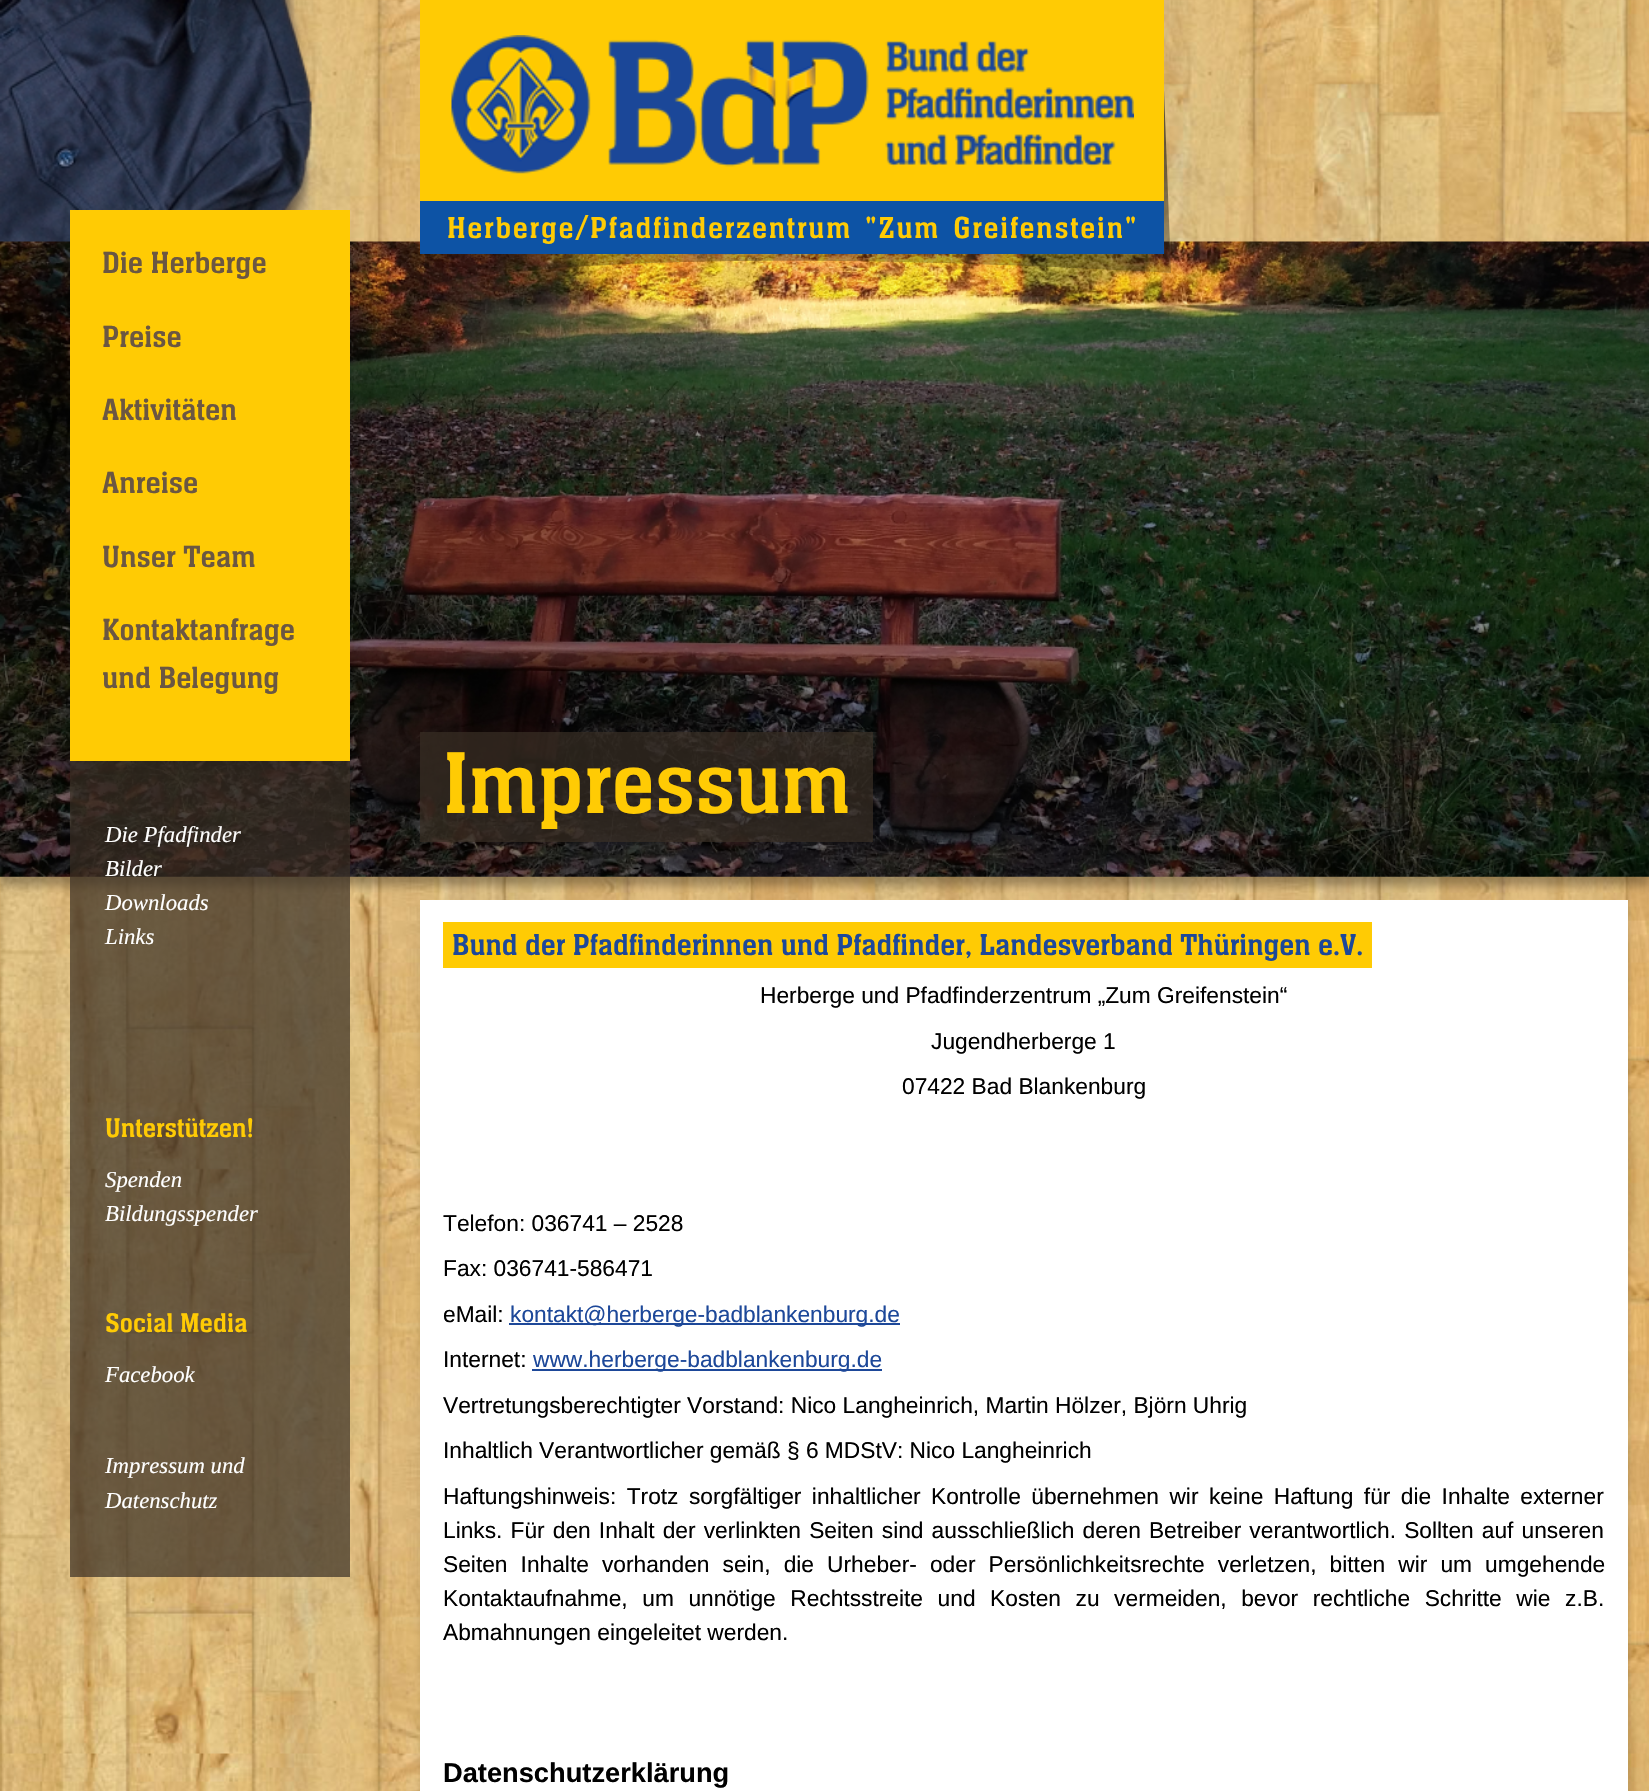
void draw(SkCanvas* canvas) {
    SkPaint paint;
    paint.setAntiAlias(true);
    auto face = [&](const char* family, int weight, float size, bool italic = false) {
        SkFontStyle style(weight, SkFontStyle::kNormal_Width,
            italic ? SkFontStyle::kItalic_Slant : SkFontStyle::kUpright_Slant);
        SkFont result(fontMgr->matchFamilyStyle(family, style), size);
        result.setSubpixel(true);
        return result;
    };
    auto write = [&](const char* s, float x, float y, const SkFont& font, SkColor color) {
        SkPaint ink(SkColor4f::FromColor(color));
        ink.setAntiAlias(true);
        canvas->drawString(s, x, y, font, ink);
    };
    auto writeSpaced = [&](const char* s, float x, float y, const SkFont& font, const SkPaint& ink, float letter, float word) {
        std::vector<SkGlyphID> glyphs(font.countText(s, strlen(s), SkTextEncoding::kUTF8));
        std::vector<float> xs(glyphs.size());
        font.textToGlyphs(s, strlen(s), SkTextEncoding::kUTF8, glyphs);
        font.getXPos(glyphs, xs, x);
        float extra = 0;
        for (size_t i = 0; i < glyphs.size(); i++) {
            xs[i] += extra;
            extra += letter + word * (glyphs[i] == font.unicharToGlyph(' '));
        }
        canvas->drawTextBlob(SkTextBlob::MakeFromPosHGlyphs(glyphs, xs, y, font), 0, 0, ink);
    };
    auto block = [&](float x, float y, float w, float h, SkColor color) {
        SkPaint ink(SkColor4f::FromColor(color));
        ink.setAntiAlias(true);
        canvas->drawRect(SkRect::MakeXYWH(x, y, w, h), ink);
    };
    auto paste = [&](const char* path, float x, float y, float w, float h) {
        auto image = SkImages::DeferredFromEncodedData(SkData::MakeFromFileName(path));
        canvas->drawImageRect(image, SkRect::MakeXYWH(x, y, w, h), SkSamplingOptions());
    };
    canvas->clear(SK_ColorWHITE);
    paste("pic1.png", 0, 0, 1649, 1791);
    paste("pic2.png", 0, 0, 313, 242);
    paint.setColor(SkColorSetARGB(26, 0, 0, 0));
    paint.setMaskFilter(SkMaskFilter::MakeBlur(kNormal_SkBlurStyle, 4.5f));
    canvas->drawRect(SkRect::MakeXYWH(420, 908, 1208, 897), paint);
    paint.setMaskFilter(nullptr);
    block(420, 900, 1208, 891, SK_ColorWHITE);
    paint.setColor(SkColorSetARGB(77, 0, 0, 0));
    paint.setMaskFilter(SkMaskFilter::MakeBlur(kNormal_SkBlurStyle, 4.5f));
    canvas->drawRect(SkRect::MakeXYWH(0, 250, 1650, 636), paint);
    paint.setMaskFilter(nullptr);
    paste("pic4.png", 0, 241, 1649, 636);
    {
        const SkColor colors[] = {SkColorSetARGB(179, 0, 0, 0), SkColorSetARGB(102, 0, 0, 0), SkColorSetARGB(26, 0, 0, 0), SkColorSetARGB(0, 0, 0, 0)};
        const float stops[] = {0, 0.5f, 0.8f, 1};
        const SkPoint ends[] = {{424, 39}, {424, 384}};
        paint.setShader(SkGradientShader::MakeLinear(ends, colors, stops, 4, SkTileMode::kClamp));
        paint.setAlpha(255);
    }
    canvas->drawPath(SkPathBuilder().moveTo(424, 286).cubicTo(597, 248, 967, 261, 1171, 273).lineTo(1162, 38).lineTo(430, 38).close().detach(), paint);
    block(420, 0, 744, 201, SkColorSetRGB(255, 203, 4));
    paste("pic3.png", 451, 35, 683, 139);
    block(420, 201, 744, 53, SkColorSetRGB(13, 83, 165));
    auto kFont1 = face("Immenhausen", 400, 31.5f);
    paint.setShader(nullptr);
    paint.setColor(SkColorSetRGB(255, 203, 4));
    writeSpaced("Herberge/Pfadfinderzentrum \"Zum Greifenstein\"", 447, 238, kFont1, paint, 1.75f, 4);
    block(70, 210, 280, 551, SkColorSetRGB(255, 203, 4));
    auto kFont2 = face("Immenhausen", 400, 32);
    write("Die Herberge", 102, 273, kFont2, SkColorSetRGB(107, 87, 66));
    write("Preise", 102, 347, kFont2, SkColorSetRGB(107, 87, 66));
    write("Aktivitäten", 102, 420, kFont2, SkColorSetRGB(107, 87, 66));
    write("Anreise", 102, 493, kFont2, SkColorSetRGB(107, 87, 66));
    write("Unser Team", 102, 567, kFont2, SkColorSetRGB(107, 87, 66));
    write("Kontaktanfrage", 102, 640, kFont2, SkColorSetRGB(107, 87, 66));
    write("und Belegung", 102, 688, kFont2, SkColorSetRGB(107, 87, 66));
    block(70, 761, 280, 816, SkColorSetARGB(179, 56, 46, 35));
    auto kFont3 = face("Liberation Serif", 400, 22.75f, true);
    write("Die Pfadfinder", 105, 842, kFont3, SK_ColorWHITE);
    write("Bilder", 105, 876, kFont3, SK_ColorWHITE);
    write("Downloads", 105, 910, kFont3, SK_ColorWHITE);
    write("Links", 105, 944, kFont3, SK_ColorWHITE);
    auto kFont4 = face("Immenhausen", 400, 28);
    write("Unterstützen!", 105, 1137, kFont4, SkColorSetRGB(255, 203, 4));
    write("Spenden", 105, 1187, kFont3, SK_ColorWHITE);
    write("Bildungsspender", 105, 1221, kFont3, SK_ColorWHITE);
    write("Social Media", 105, 1332, kFont4, SkColorSetRGB(255, 203, 4));
    write("Facebook", 105, 1382, kFont3, SK_ColorWHITE);
    write("Impressum und", 105, 1473, kFont3, SK_ColorWHITE);
    write("Datenschutz", 105, 1508, kFont3, SK_ColorWHITE);
    block(420, 732, 453, 110, SkColorSetARGB(179, 56, 46, 35));
    auto kFont5 = face("Immenhausen", 400, 91);
    write("Impressum", 443, 813, kFont5, SkColorSetRGB(255, 203, 4));
    block(443, 922, 929, 46, SkColorSetRGB(255, 203, 4));
    write("Bund der Pfadfinderinnen und Pfadfinder, Landesverband Thüringen e.V.", 452, 955, kFont1, SkColorSetRGB(29, 72, 153));
    auto kFont6 = face("Liberation Sans", 400, 22.75f);
    write("Herberge und Pfadfinderzentrum „Zum Greifenstein“", 760, 1003, kFont6, SK_ColorBLACK);
    write("Jugendherberge 1", 931, 1049, kFont6, SK_ColorBLACK);
    write("07422 Bad Blankenburg", 902, 1094, kFont6, SK_ColorBLACK);
    write("Telefon: 036741 – 2528", 443, 1231, kFont6, SK_ColorBLACK);
    write("Fax: 036741-586471", 443, 1276, kFont6, SK_ColorBLACK);
    write("eMail:", 443, 1322, kFont6, SK_ColorBLACK);
    block(509, 1323, 391, 2, SkColorSetRGB(29, 72, 153));
    write("kontakt@herberge-badblankenburg.de", 510, 1322, kFont6, SkColorSetRGB(29, 72, 153));
    write("Internet:", 443, 1367, kFont6, SK_ColorBLACK);
    block(532, 1369, 350, 2, SkColorSetRGB(29, 72, 153));
    write("www.herberge-badblankenburg.de", 533, 1367, kFont6, SkColorSetRGB(29, 72, 153));
    write("Vertretungsberechtigter Vorstand: Nico Langheinrich, Martin Hölzer, Björn Uhrig", 443, 1413, kFont6, SK_ColorBLACK);
    write("Inhaltlich Verantwortlicher gemäß § 6 MDStV: Nico Langheinrich", 443, 1458, kFont6, SK_ColorBLACK);
    paint.setColor(SK_ColorBLACK);
    writeSpaced("Haftungshinweis: Trotz sorgfältiger inhaltlicher Kontrolle übernehmen wir keine Haftung für die Inhalte externer", 443, 1504, kFont6, paint, 0, 4.1f);
    writeSpaced("Links. Für den Inhalt der verlinkten Seiten sind ausschließlich deren Betreiber verantwortlich. Sollten auf unseren", 443, 1538, kFont6, paint, 0, 1.8f);
    writeSpaced("Seiten Inhalte vorhanden sein, die Urheber- oder Persönlichkeitsrechte verletzen, bitten wir um umgehende", 443, 1572, kFont6, paint, 0, 6.75f);
    writeSpaced("Kontaktaufnahme, um unnötige Rechtsstreite und Kosten zu vermeiden, bevor rechtliche Schritte wie z.B.", 443, 1606, kFont6, paint, 0, 8.25f);
    write("Abmahnungen eingeleitet werden.", 443, 1640, kFont6, SK_ColorBLACK);
    auto kFont7 = face("Liberation Sans", 700, 27.25f);
    write("Datenschutzerklärung", 443, 1782, kFont7, SK_ColorBLACK);
}
